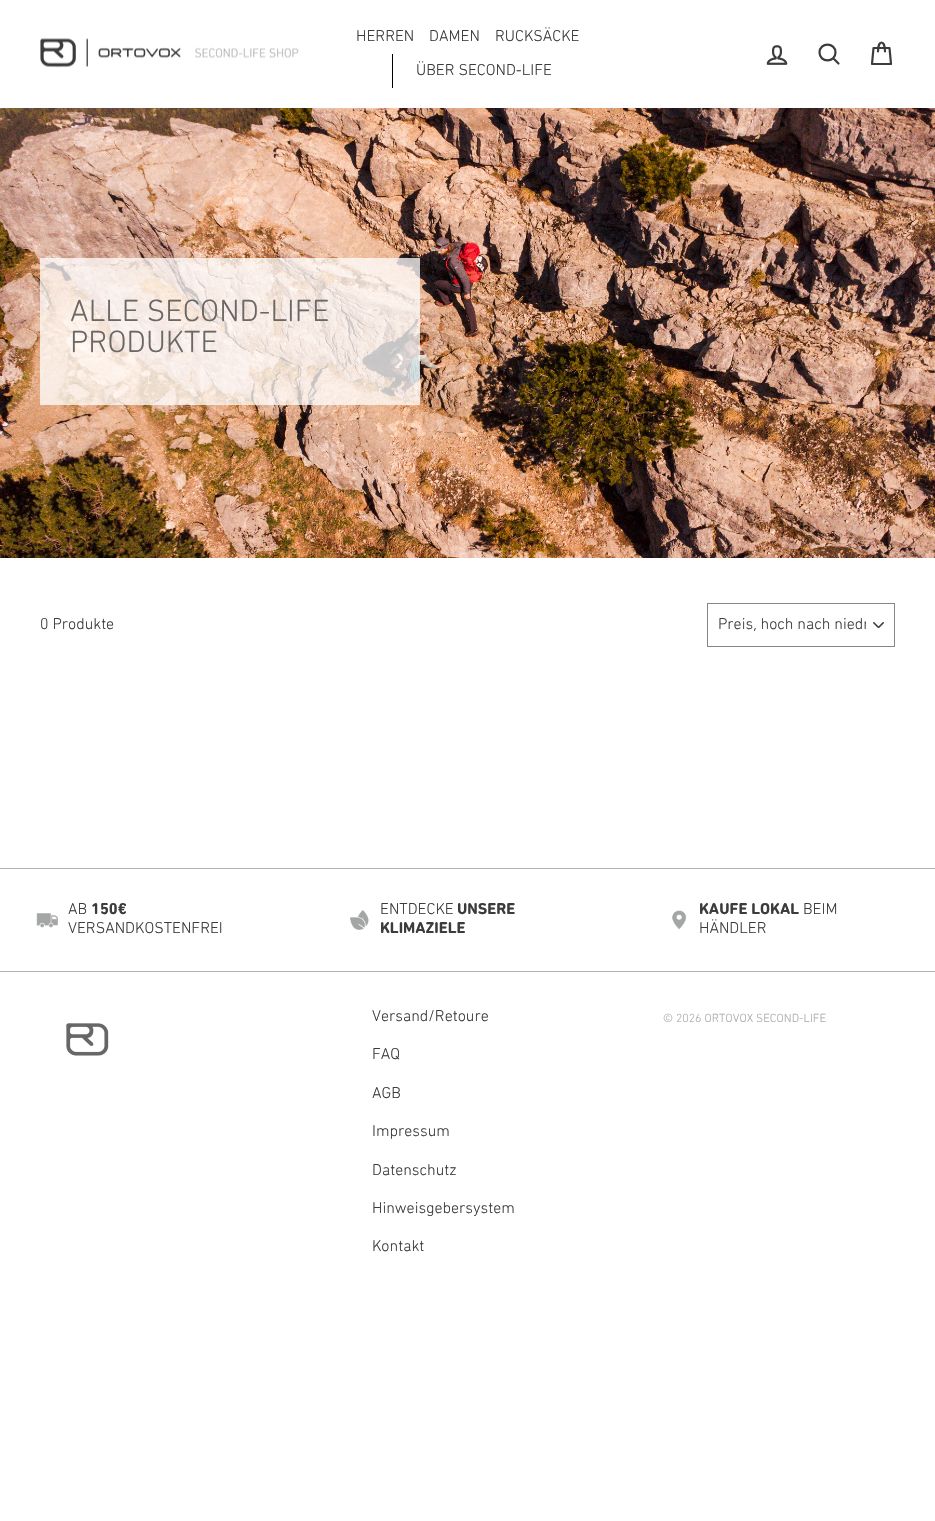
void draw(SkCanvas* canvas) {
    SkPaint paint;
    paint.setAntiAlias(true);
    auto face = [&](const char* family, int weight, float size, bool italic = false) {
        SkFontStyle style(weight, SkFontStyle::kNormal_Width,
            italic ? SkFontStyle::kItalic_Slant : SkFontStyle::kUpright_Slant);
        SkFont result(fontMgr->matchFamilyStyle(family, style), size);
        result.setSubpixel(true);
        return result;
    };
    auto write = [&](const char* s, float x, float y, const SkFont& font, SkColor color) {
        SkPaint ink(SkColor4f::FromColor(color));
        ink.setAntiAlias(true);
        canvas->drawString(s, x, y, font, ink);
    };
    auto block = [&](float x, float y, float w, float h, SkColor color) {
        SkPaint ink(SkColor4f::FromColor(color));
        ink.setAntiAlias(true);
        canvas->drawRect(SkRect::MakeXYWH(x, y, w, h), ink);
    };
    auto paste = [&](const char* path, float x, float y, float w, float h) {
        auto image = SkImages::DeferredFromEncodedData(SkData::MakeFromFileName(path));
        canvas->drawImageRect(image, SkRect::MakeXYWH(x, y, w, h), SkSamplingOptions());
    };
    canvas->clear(SK_ColorWHITE);
    paste("pic1.png", 40, 38, 259, 30);
    auto kFont1 = face("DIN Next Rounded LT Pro", 300, 16);
    write("HERREN", 356, 41, kFont1, SkColorSetRGB(60, 60, 59));
    write("DAMEN", 429, 41, kFont1, SkColorSetRGB(60, 60, 59));
    write("RUCKSÄCKE", 495, 41, kFont1, SkColorSetRGB(60, 60, 59));
    block(392, 54, 1, 34, SK_ColorBLACK);
    write("ÜBER SECOND-LIFE", 416, 75, kFont1, SkColorSetRGB(60, 60, 59));
    paste("pic2.png", 766, 45, 22, 20);
    paint.setStyle(SkPaint::kStroke_Style);
    paint.setStrokeWidth(2.2f);
    paint.setStrokeCap(SkPaint::kRound_Cap);
    paint.setStrokeJoin(SkPaint::kRound_Join);
    paint.setColor(SkColorSetRGB(60, 60, 59));
    canvas->drawPath(SkPathBuilder().moveTo(835.5f, 52.5f).cubicTo(835.5f, 63, 819.5f, 63, 819.5f, 52.5f).cubicTo(819.5f, 42, 835.5f, 42, 835.5f, 52.5f).close().moveTo(838.5f, 63.5f).lineTo(833.5f, 58.5f).detach(), paint);
    canvas->drawPath(SkPathBuilder().moveTo(878, 51.5f).cubicTo(878, 39.5f, 885, 39.5f, 885, 51.5f).moveTo(873.5f, 48).lineTo(889.5f, 48).lineTo(891, 64).lineTo(872, 64).close().detach(), paint);
    paste("pic3.png", 0, 108, 935, 450);
    block(40, 258, 380, 147, SkColorSetARGB(191, 255, 255, 255));
    auto kFont2 = face("DIN Next Rounded LT Pro", 300, 31.25f);
    write("ALLE SECOND-LIFE", 70, 321, kFont2, SkColorSetRGB(106, 103, 101));
    write("PRODUKTE", 70, 352, kFont2, SkColorSetRGB(106, 103, 101));
    write("0 Produkte", 40, 629, kFont1, SkColorSetRGB(60, 60, 59));
    paste("pic4.png", 873, 622, 11, 6);
    paint.setStrokeWidth(1);
    paint.setStrokeCap(SkPaint::kButt_Cap);
    paint.setStrokeJoin(SkPaint::kMiter_Join);
    paint.setColor(SkColorSetRGB(135, 135, 135));
    canvas->drawRect(SkRect::MakeXYWH(707.5f, 603.5f, 187, 43), paint);
    canvas->save();
    canvas->clipRect(SkRect::MakeXYWH(718, 617, 148, 16));
    write("Preis, hoch nach niedr", 718, 629, kFont1, SkColorSetRGB(60, 60, 59));
    canvas->restore();
    block(0, 868, 935, 1, SkColorSetRGB(179, 179, 179));
    block(0, 971, 935, 1, SkColorSetRGB(179, 179, 179));
    paste("pic5.png", 36, 913, 22, 15);
    write("AB", 68, 914, kFont1, SkColorSetRGB(60, 60, 59));
    auto kFont3 = face("DIN Next Rounded LT Pro", 700, 16);
    write("150€", 91, 914, kFont3, SkColorSetRGB(60, 60, 59));
    write("VERSANDKOSTENFREI", 68, 933, kFont1, SkColorSetRGB(60, 60, 59));
    paste("pic6.png", 350, 910, 19, 20);
    write("ENTDECKE", 380, 914, kFont1, SkColorSetRGB(60, 60, 59));
    write("UNSERE", 457, 914, kFont3, SkColorSetRGB(60, 60, 59));
    write("KLIMAZIELE", 380, 933, kFont3, SkColorSetRGB(60, 60, 59));
    paste("pic7.png", 672, 910, 15, 20);
    write("KAUFE LOKAL", 699, 914, kFont3, SkColorSetRGB(60, 60, 59));
    write("BEIM", 803, 914, kFont1, SkColorSetRGB(60, 60, 59));
    write("HÄNDLER", 699, 933, kFont1, SkColorSetRGB(60, 60, 59));
    write("Versand/Retoure", 372, 1021, kFont1, SkColorSetRGB(60, 60, 59));
    write("FAQ", 372, 1059, kFont1, SkColorSetRGB(60, 60, 59));
    write("AGB", 372, 1098, kFont1, SkColorSetRGB(60, 60, 59));
    write("Impressum", 372, 1136, kFont1, SkColorSetRGB(60, 60, 59));
    write("Datenschutz", 372, 1175, kFont1, SkColorSetRGB(60, 60, 59));
    write("Hinweisgebersystem", 372, 1213, kFont1, SkColorSetRGB(60, 60, 59));
    write("Kontakt", 372, 1251, kFont1, SkColorSetRGB(60, 60, 59));
    auto kFont4 = face("DIN Next Rounded LT Pro", 300, 12);
    write("© 2026 ORTOVOX SECOND-LIFE", 663, 1022, kFont4, SkColorSetRGB(170, 170, 170));
    paste("pic8.png", 66, 1023, 43, 33);
}
